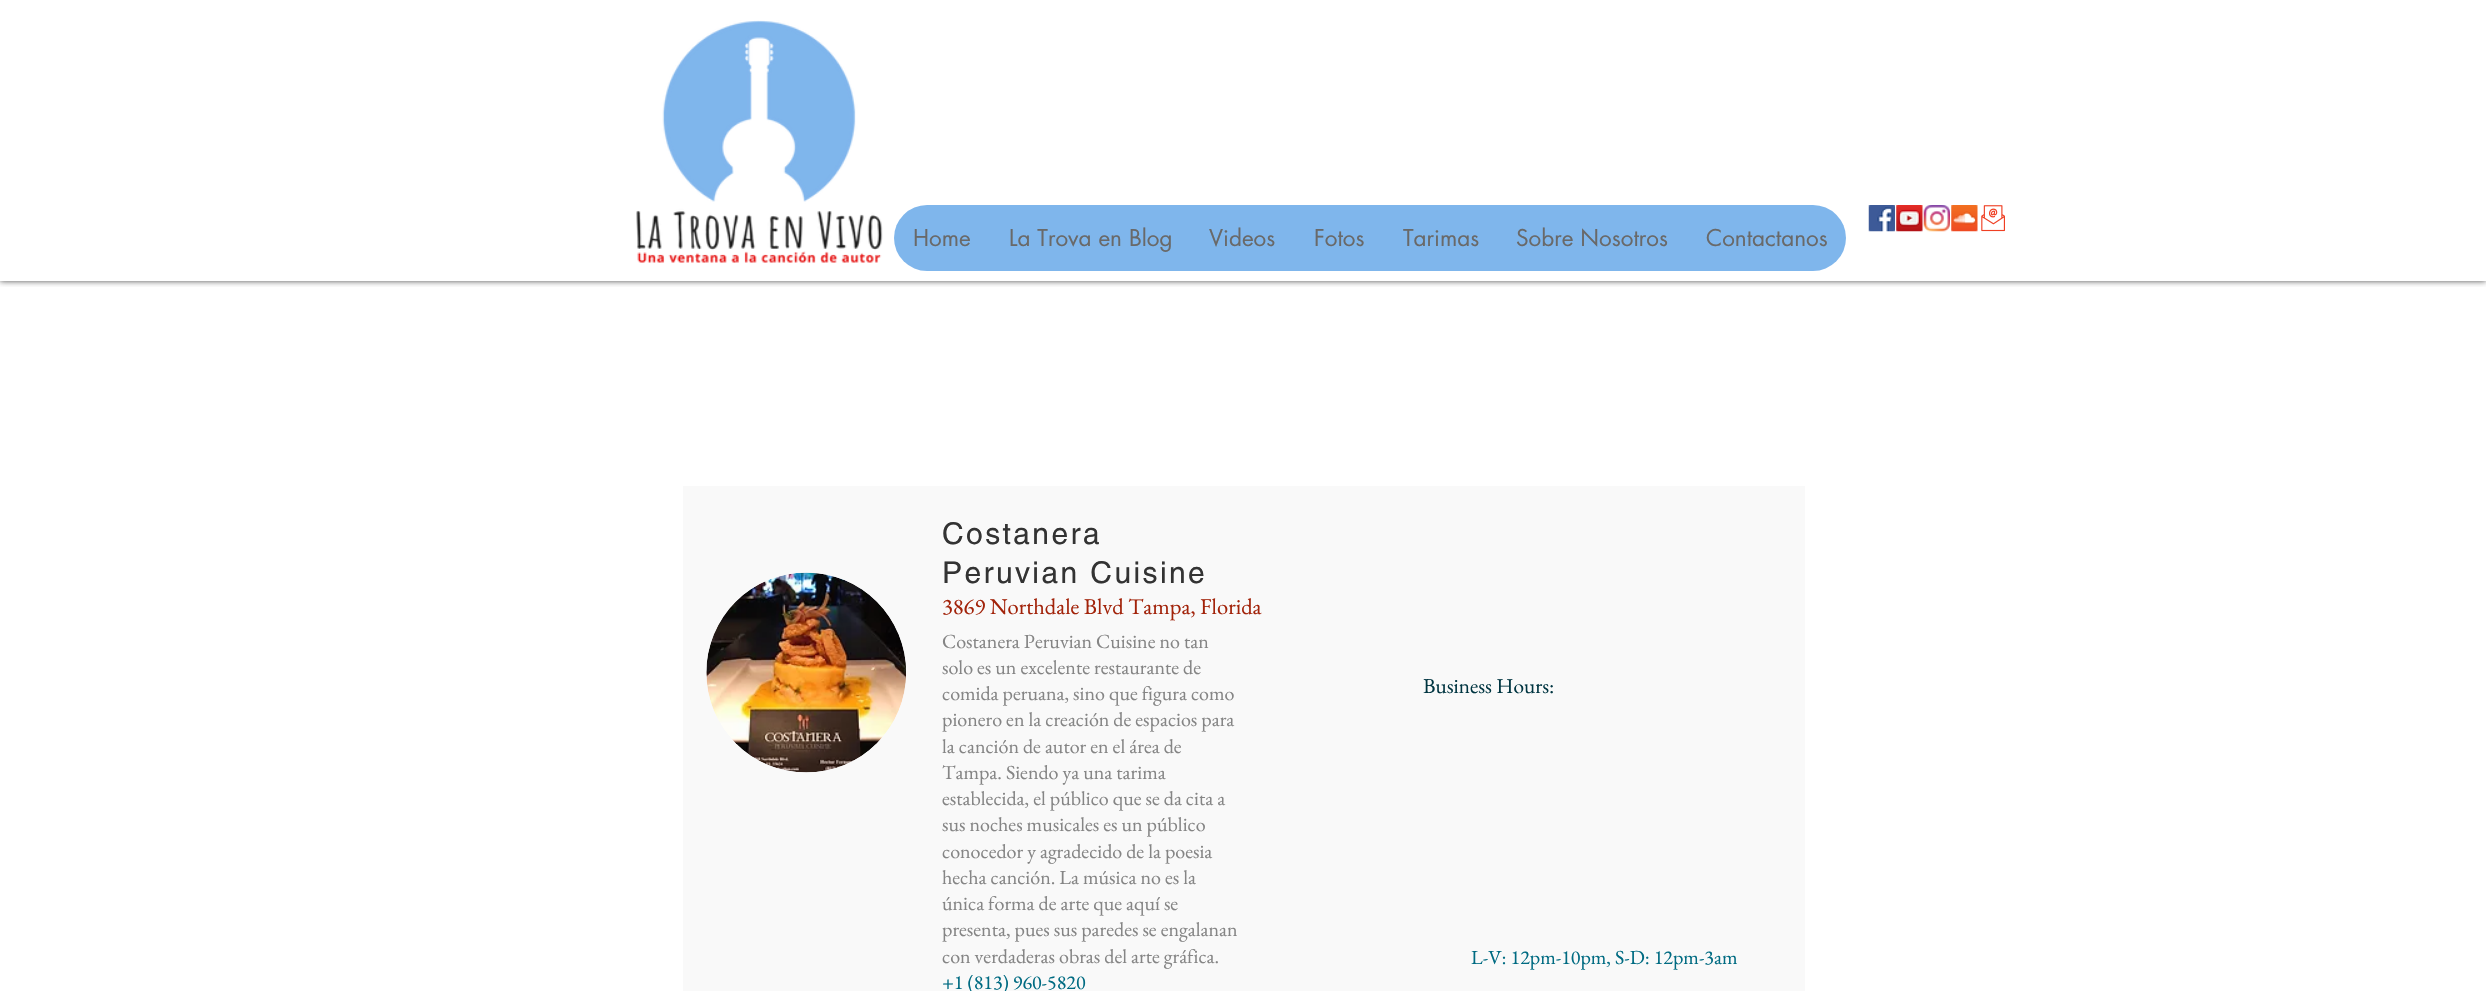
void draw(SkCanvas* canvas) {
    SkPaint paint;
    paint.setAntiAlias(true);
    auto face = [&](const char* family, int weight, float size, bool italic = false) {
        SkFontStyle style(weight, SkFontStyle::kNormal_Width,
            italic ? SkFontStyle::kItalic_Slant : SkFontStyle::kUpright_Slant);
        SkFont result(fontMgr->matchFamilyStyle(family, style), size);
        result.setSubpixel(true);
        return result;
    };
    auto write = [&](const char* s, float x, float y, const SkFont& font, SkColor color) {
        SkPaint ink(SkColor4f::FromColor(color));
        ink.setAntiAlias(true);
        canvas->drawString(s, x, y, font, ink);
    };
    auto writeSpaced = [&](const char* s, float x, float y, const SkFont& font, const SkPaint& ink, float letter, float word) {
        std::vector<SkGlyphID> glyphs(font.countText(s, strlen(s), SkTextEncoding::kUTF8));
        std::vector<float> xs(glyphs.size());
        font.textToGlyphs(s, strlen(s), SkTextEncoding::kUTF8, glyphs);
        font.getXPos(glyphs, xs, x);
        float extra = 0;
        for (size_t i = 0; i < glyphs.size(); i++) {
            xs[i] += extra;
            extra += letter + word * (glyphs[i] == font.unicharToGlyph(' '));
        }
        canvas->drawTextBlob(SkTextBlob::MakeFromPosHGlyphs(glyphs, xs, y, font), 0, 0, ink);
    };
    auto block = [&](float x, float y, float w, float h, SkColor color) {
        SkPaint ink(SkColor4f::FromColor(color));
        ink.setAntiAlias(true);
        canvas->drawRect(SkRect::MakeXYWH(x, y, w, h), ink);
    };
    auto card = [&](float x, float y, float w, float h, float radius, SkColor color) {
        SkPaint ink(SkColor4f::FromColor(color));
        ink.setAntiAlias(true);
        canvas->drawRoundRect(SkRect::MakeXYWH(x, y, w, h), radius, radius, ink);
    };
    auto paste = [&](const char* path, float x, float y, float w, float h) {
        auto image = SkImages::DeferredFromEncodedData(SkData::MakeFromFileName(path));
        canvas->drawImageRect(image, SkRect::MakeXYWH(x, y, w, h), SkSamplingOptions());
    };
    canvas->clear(SK_ColorWHITE);
    canvas->save();
    canvas->clipRect(SkRect::MakeXYWH(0, 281, 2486, 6));
    paint.setColor(SkColorSetARGB(179, 0, 0, 0));
    paint.setMaskFilter(SkMaskFilter::MakeBlur(kNormal_SkBlurStyle, 3));
    canvas->drawRect(SkRect::MakeXYWH(0, 0, 2486, 281), paint);
    paint.setMaskFilter(nullptr);
    canvas->restore();
    paste("pic1.png", 636, 20, 247, 243);
    paste("pic2.png", 1868, 205, 27, 27);
    paste("pic3.png", 1896, 205, 27, 27);
    paste("pic4.png", 1923, 205, 27, 27);
    paste("pic5.png", 1951, 205, 27, 27);
    paste("pic6.png", 1981, 205, 24, 27);
    card(894, 205, 952, 66, 33, SkColorSetRGB(127, 182, 236));
    auto kFont1 = face("futura", 400, 22.5f);
    write("Home", 913, 246, kFont1, SkColorSetRGB(105, 105, 105));
    write("La Trova en Blog", 1009, 246, kFont1, SkColorSetRGB(105, 105, 105));
    write("Videos", 1209, 246, kFont1, SkColorSetRGB(105, 105, 105));
    write("Fotos", 1314, 246, kFont1, SkColorSetRGB(105, 105, 105));
    write("Tarimas", 1403, 246, kFont1, SkColorSetRGB(105, 105, 105));
    write("Sobre Nosotros", 1516, 246, kFont1, SkColorSetRGB(105, 105, 105));
    write("Contactanos", 1706, 246, kFont1, SkColorSetRGB(105, 105, 105));
    block(683, 486, 1122, 505, SkColorSetRGB(249, 249, 249));
    auto kFont2 = face("helvetica", 400, 30);
    paint.setColor(SkColorSetRGB(51, 51, 51));
    writeSpaced("Costanera", 942, 544, kFont2, paint, 2.4f, 0);
    writeSpaced("Peruvian Cuisine", 942, 583, kFont2, paint, 2.4f, 0);
    paste("pic7.png", 706, 572, 200, 201);
    auto kFont3 = face("EB Garamond", 400, 22.5f);
    write("3869 Northdale Blvd Tampa, Florida", 942, 614, kFont3, SkColorSetRGB(162, 35, 10));
    auto kFont4 = face("EB Garamond", 400, 20);
    write("Costanera Peruvian Cuisine no tan", 942, 648, kFont4, SkColorSetRGB(133, 133, 133));
    write("solo es un excelente restaurante de", 942, 674, kFont4, SkColorSetRGB(133, 133, 133));
    write("comida peruana, sino que figura como", 942, 700, kFont4, SkColorSetRGB(133, 133, 133));
    write("pionero en la creación de espacios para", 942, 726, kFont4, SkColorSetRGB(133, 133, 133));
    write("la canción de autor en el área de", 942, 753, kFont4, SkColorSetRGB(133, 133, 133));
    write("Tampa. Siendo ya una tarima", 942, 779, kFont4, SkColorSetRGB(133, 133, 133));
    write("establecida, el público que se da cita a", 942, 805, kFont4, SkColorSetRGB(133, 133, 133));
    write("sus noches musicales es un público", 942, 831, kFont4, SkColorSetRGB(133, 133, 133));
    write("conocedor y agradecido de la poesia", 942, 858, kFont4, SkColorSetRGB(133, 133, 133));
    write("hecha canción. La música no es la", 942, 884, kFont4, SkColorSetRGB(133, 133, 133));
    write("única forma de arte que aquí se", 942, 910, kFont4, SkColorSetRGB(133, 133, 133));
    write("presenta, pues sus paredes se engalanan", 942, 936, kFont4, SkColorSetRGB(133, 133, 133));
    write("con verdaderas obras del arte gráfica.", 942, 963, kFont4, SkColorSetRGB(133, 133, 133));
    auto kFont5 = face("EB Garamond", 400, 21.25f);
    write("Business Hours:", 1423, 693, kFont5, SkColorSetRGB(0, 53, 65));
    write("L-V: 12pm-10pm, S-D: 12pm-3am", 1471, 964, kFont4, SkColorSetRGB(0, 107, 130));
    write("+1 (813) 960-5820", 942, 989, kFont4, SkColorSetRGB(0, 107, 130));
}
